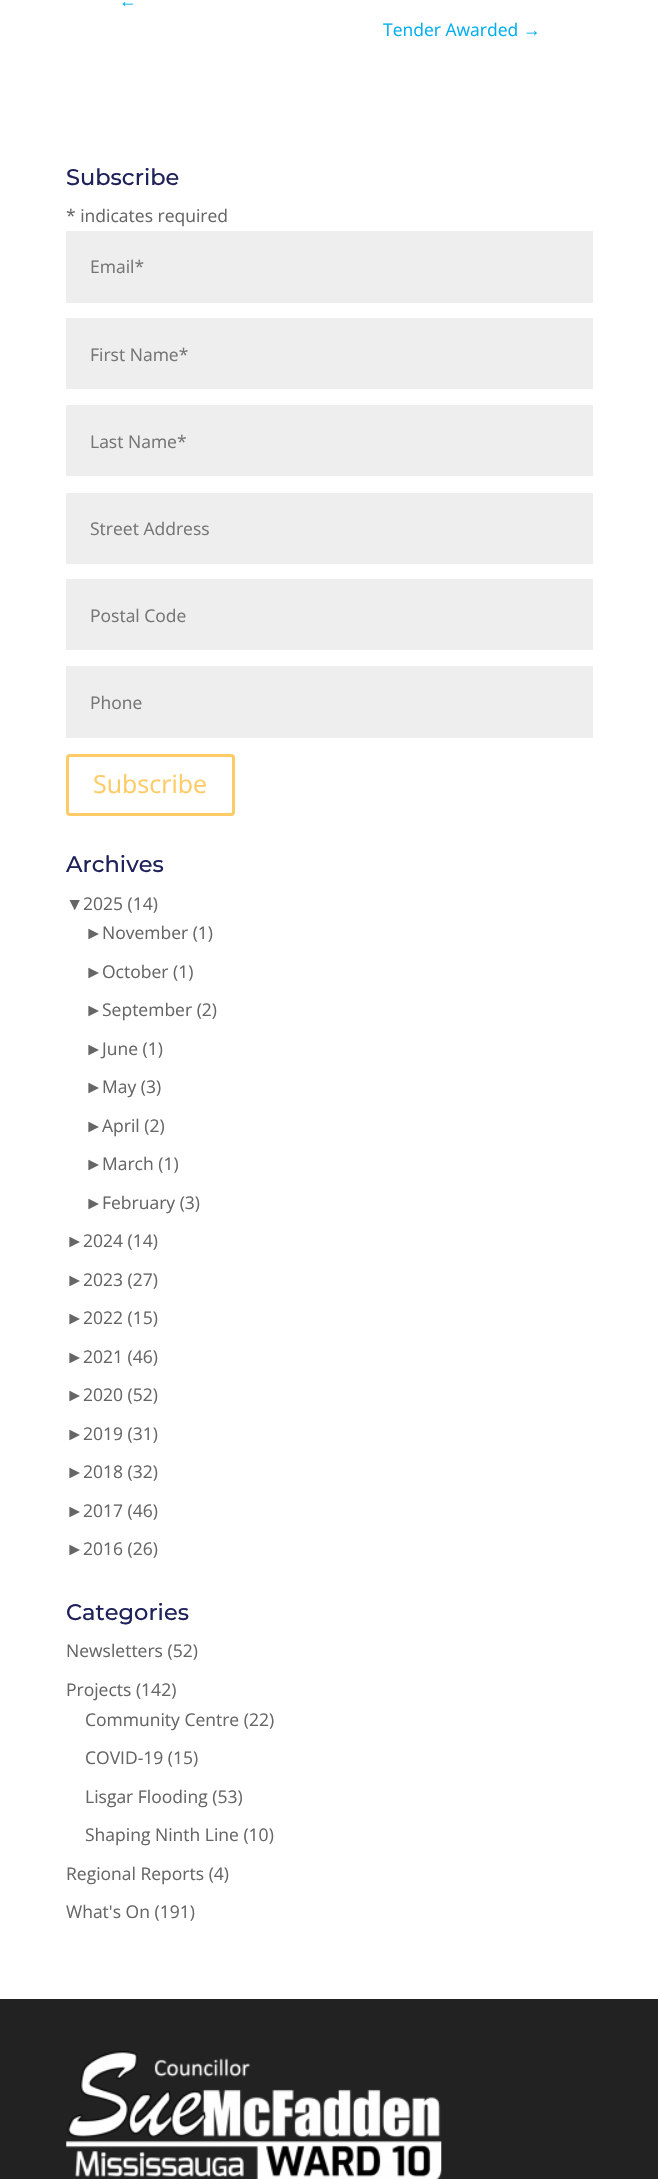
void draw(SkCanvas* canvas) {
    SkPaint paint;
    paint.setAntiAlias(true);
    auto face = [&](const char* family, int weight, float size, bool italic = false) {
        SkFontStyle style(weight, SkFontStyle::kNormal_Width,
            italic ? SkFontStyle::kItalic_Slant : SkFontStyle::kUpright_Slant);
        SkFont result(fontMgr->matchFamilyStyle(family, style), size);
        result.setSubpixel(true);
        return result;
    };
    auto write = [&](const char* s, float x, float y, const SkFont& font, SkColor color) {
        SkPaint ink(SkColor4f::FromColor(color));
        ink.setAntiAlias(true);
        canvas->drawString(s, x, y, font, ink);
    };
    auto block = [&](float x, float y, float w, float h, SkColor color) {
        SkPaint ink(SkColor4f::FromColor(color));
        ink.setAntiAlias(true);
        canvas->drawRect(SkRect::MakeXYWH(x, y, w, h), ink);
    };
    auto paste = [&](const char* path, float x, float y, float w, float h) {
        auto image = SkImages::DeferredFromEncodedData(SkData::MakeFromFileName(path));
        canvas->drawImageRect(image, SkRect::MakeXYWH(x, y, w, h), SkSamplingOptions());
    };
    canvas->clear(SK_ColorWHITE);
    auto kFont1 = face("Liberation Sans", 400, 17.5f);
    write("←", 119, 7, kFont1, SkColorSetRGB(0, 174, 239));
    auto kFont2 = face("Open Sans", 400, 17.5f);
    write("Tender Awarded", 383, 36, kFont2, SkColorSetRGB(0, 174, 239));
    write("→", 523, 36, kFont1, SkColorSetRGB(0, 174, 239));
    auto kFont3 = face("Montserrat", 100, 22.5f);
    write("Subscribe", 66, 185, kFont3, SkColorSetRGB(31, 34, 90));
    write("* indicates required", 66, 222, kFont2, SkColorSetRGB(102, 102, 102));
    block(66, 231, 527, 72, SkColorSetRGB(238, 238, 238));
    write("Email*", 90, 273, kFont2, SkColorSetRGB(117, 117, 117));
    block(66, 318, 527, 71, SkColorSetRGB(238, 238, 238));
    write("First Name*", 90, 361, kFont2, SkColorSetRGB(117, 117, 117));
    block(66, 405, 527, 71, SkColorSetRGB(238, 238, 238));
    write("Last Name*", 90, 448, kFont2, SkColorSetRGB(117, 117, 117));
    block(66, 493, 527, 71, SkColorSetRGB(238, 238, 238));
    write("Street Address", 90, 535, kFont2, SkColorSetRGB(117, 117, 117));
    block(66, 579, 527, 71, SkColorSetRGB(238, 238, 238));
    write("Postal Code", 90, 622, kFont2, SkColorSetRGB(117, 117, 117));
    block(66, 666, 527, 72, SkColorSetRGB(238, 238, 238));
    write("Phone", 90, 709, kFont2, SkColorSetRGB(117, 117, 117));
    paint.setStyle(SkPaint::kStroke_Style);
    paint.setStrokeWidth(3);
    paint.setColor(SkColorSetRGB(255, 203, 102));
    canvas->drawRoundRect(SkRect::MakeXYWH(67.5f, 755.5f, 166, 59), 2.5f, 2.5f, paint);
    auto kFont4 = face("Open Sans", 400, 25);
    write("Subscribe", 93, 793, kFont4, SkColorSetRGB(255, 203, 102));
    write("Archives", 66, 872, kFont3, SkColorSetRGB(31, 34, 90));
    write("▼", 66, 910, kFont1, SkColorSetRGB(102, 102, 102));
    write("2025 (14)", 83, 910, kFont2, SkColorSetRGB(102, 102, 102));
    write("►", 85, 939, kFont1, SkColorSetRGB(102, 102, 102));
    write("November (1)", 102, 939, kFont2, SkColorSetRGB(102, 102, 102));
    write("►", 85, 978, kFont1, SkColorSetRGB(102, 102, 102));
    write("October (1)", 102, 978, kFont2, SkColorSetRGB(102, 102, 102));
    write("►", 85, 1016, kFont1, SkColorSetRGB(102, 102, 102));
    write("September (2)", 102, 1016, kFont2, SkColorSetRGB(102, 102, 102));
    write("►", 85, 1055, kFont1, SkColorSetRGB(102, 102, 102));
    write("June (1)", 102, 1055, kFont2, SkColorSetRGB(102, 102, 102));
    write("►", 85, 1093, kFont1, SkColorSetRGB(102, 102, 102));
    write("May (3)", 102, 1093, kFont2, SkColorSetRGB(102, 102, 102));
    write("►", 85, 1132, kFont1, SkColorSetRGB(102, 102, 102));
    write("April (2)", 102, 1132, kFont2, SkColorSetRGB(102, 102, 102));
    write("►", 85, 1170, kFont1, SkColorSetRGB(102, 102, 102));
    write("March (1)", 102, 1170, kFont2, SkColorSetRGB(102, 102, 102));
    write("►", 85, 1209, kFont1, SkColorSetRGB(102, 102, 102));
    write("February (3)", 102, 1209, kFont2, SkColorSetRGB(102, 102, 102));
    write("►", 66, 1247, kFont1, SkColorSetRGB(102, 102, 102));
    write("2024 (14)", 83, 1247, kFont2, SkColorSetRGB(102, 102, 102));
    write("►", 66, 1286, kFont1, SkColorSetRGB(102, 102, 102));
    write("2023 (27)", 83, 1286, kFont2, SkColorSetRGB(102, 102, 102));
    write("►", 66, 1324, kFont1, SkColorSetRGB(102, 102, 102));
    write("2022 (15)", 83, 1324, kFont2, SkColorSetRGB(102, 102, 102));
    write("►", 66, 1363, kFont1, SkColorSetRGB(102, 102, 102));
    write("2021 (46)", 83, 1363, kFont2, SkColorSetRGB(102, 102, 102));
    write("►", 66, 1401, kFont1, SkColorSetRGB(102, 102, 102));
    write("2020 (52)", 83, 1401, kFont2, SkColorSetRGB(102, 102, 102));
    write("►", 66, 1440, kFont1, SkColorSetRGB(102, 102, 102));
    write("2019 (31)", 83, 1440, kFont2, SkColorSetRGB(102, 102, 102));
    write("►", 66, 1478, kFont1, SkColorSetRGB(102, 102, 102));
    write("2018 (32)", 83, 1478, kFont2, SkColorSetRGB(102, 102, 102));
    write("►", 66, 1517, kFont1, SkColorSetRGB(102, 102, 102));
    write("2017 (46)", 83, 1517, kFont2, SkColorSetRGB(102, 102, 102));
    write("►", 66, 1555, kFont1, SkColorSetRGB(102, 102, 102));
    write("2016 (26)", 83, 1555, kFont2, SkColorSetRGB(102, 102, 102));
    write("Categories", 66, 1620, kFont3, SkColorSetRGB(31, 34, 90));
    write("Newsletters (52)", 66, 1657, kFont2, SkColorSetRGB(102, 102, 102));
    write("Projects (142)", 66, 1696, kFont2, SkColorSetRGB(102, 102, 102));
    write("Community Centre (22)", 85, 1726, kFont2, SkColorSetRGB(102, 102, 102));
    write("COVID-19 (15)", 85, 1764, kFont2, SkColorSetRGB(102, 102, 102));
    write("Lisgar Flooding (53)", 85, 1803, kFont2, SkColorSetRGB(102, 102, 102));
    write("Shaping Ninth Line (10)", 85, 1841, kFont2, SkColorSetRGB(102, 102, 102));
    write("Regional Reports (4)", 66, 1880, kFont2, SkColorSetRGB(102, 102, 102));
    write("What's On (191)", 66, 1918, kFont2, SkColorSetRGB(102, 102, 102));
    block(0, 1999, 658, 180, SkColorSetRGB(34, 34, 34));
    paste("pic1.png", 66, 2051, 376, 128);
}
